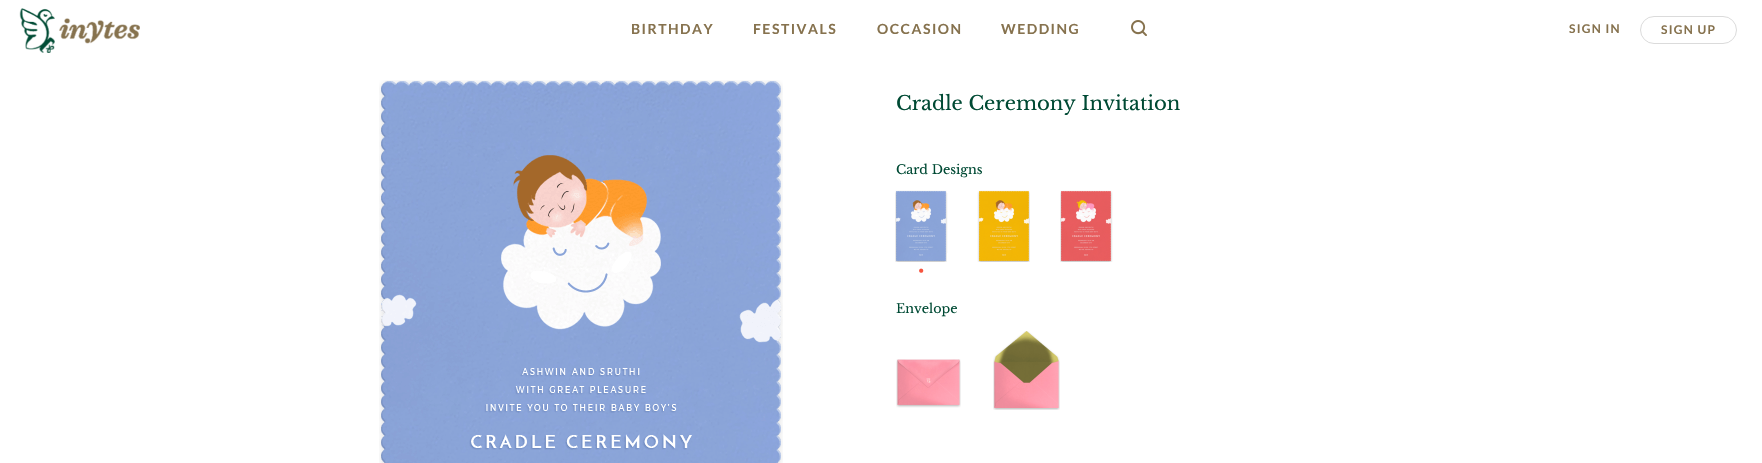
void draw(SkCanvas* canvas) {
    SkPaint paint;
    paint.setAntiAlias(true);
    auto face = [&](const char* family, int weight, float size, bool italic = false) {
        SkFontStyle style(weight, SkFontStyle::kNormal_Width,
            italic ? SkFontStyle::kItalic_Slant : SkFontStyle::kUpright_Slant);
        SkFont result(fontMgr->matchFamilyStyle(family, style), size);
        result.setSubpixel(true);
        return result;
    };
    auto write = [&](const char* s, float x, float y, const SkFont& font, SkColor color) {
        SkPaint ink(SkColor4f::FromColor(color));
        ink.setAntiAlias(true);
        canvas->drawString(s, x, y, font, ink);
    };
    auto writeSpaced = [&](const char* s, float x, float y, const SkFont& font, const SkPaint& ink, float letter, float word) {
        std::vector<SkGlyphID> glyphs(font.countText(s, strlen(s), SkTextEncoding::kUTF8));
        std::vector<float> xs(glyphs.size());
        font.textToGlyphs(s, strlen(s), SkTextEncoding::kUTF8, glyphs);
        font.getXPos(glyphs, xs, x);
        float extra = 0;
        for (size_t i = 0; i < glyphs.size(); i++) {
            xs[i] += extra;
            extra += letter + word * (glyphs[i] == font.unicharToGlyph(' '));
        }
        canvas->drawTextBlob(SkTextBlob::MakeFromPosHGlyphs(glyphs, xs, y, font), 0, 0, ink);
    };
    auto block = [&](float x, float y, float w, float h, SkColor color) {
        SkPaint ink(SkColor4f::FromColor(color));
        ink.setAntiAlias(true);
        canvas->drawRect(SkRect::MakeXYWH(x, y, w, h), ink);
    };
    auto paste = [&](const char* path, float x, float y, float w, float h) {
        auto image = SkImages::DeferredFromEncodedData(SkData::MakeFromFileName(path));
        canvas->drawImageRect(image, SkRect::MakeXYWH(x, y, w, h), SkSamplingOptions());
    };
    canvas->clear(SK_ColorWHITE);
    paste("pic1.png", 19, 8, 121, 45);
    auto kFont1 = face("Lato", 700, 14);
    paint.setColor(SkColorSetRGB(134, 114, 78));
    writeSpaced("BIRTHDAY", 631, 34, kFont1, paint, 1.5f, 0);
    block(947, 193, 1, 60, SkColorSetRGB(250, 250, 250));
    writeSpaced("FESTIVALS", 753, 34, kFont1, paint, 1.5f, 0);
    writeSpaced("OCCASION", 877, 34, kFont1, paint, 1.5f, 0);
    writeSpaced("WEDDING", 1001, 34, kFont1, paint, 1.5f, 0);
    paste("pic2.png", 1131, 20, 16, 16);
    auto kFont2 = face("Lato", 700, 12);
    writeSpaced("SIGN IN", 1569, 33, kFont2, paint, 1.25f, 0);
    paint.setStyle(SkPaint::kStroke_Style);
    paint.setStrokeWidth(1);
    paint.setColor(SkColorSetRGB(219, 219, 219));
    canvas->drawRoundRect(SkRect::MakeXYWH(1640.5f, 16.5f, 96, 27), 13.5f, 13.5f, paint);
    paint.setStyle(SkPaint::kFill_Style);
    paint.setColor(SkColorSetRGB(134, 114, 78));
    writeSpaced("SIGN UP", 1661, 34, kFont2, paint, 1.25f, 0);
    paste("pic3.png", 379, 80, 404, 383);
    auto kFont3 = face("Libre Baskerville", 400, 19.6f);
    write("Cradle Ceremony Invitation", 896, 110, kFont3, SkColorSetRGB(0, 74, 52));
    auto kFont4 = face("Libre Baskerville", 400, 12.75f);
    write("Card Designs", 896, 174, kFont4, SkColorSetRGB(0, 74, 52));
    paste("pic4.png", 977, 190, 53, 72);
    paste("pic5.png", 1060, 190, 53, 72);
    paste("pic6.png", 895, 190, 52, 72);
    auto kFont5 = face("Lato", 400, 11);
    write("•", 918, 274, kFont5, SkColorSetRGB(247, 84, 62));
    write("Envelope", 896, 313, kFont4, SkColorSetRGB(0, 74, 52));
    paste("pic7.png", 896, 359, 65, 49);
    paste("pic8.png", 993, 331, 67, 79);
}
